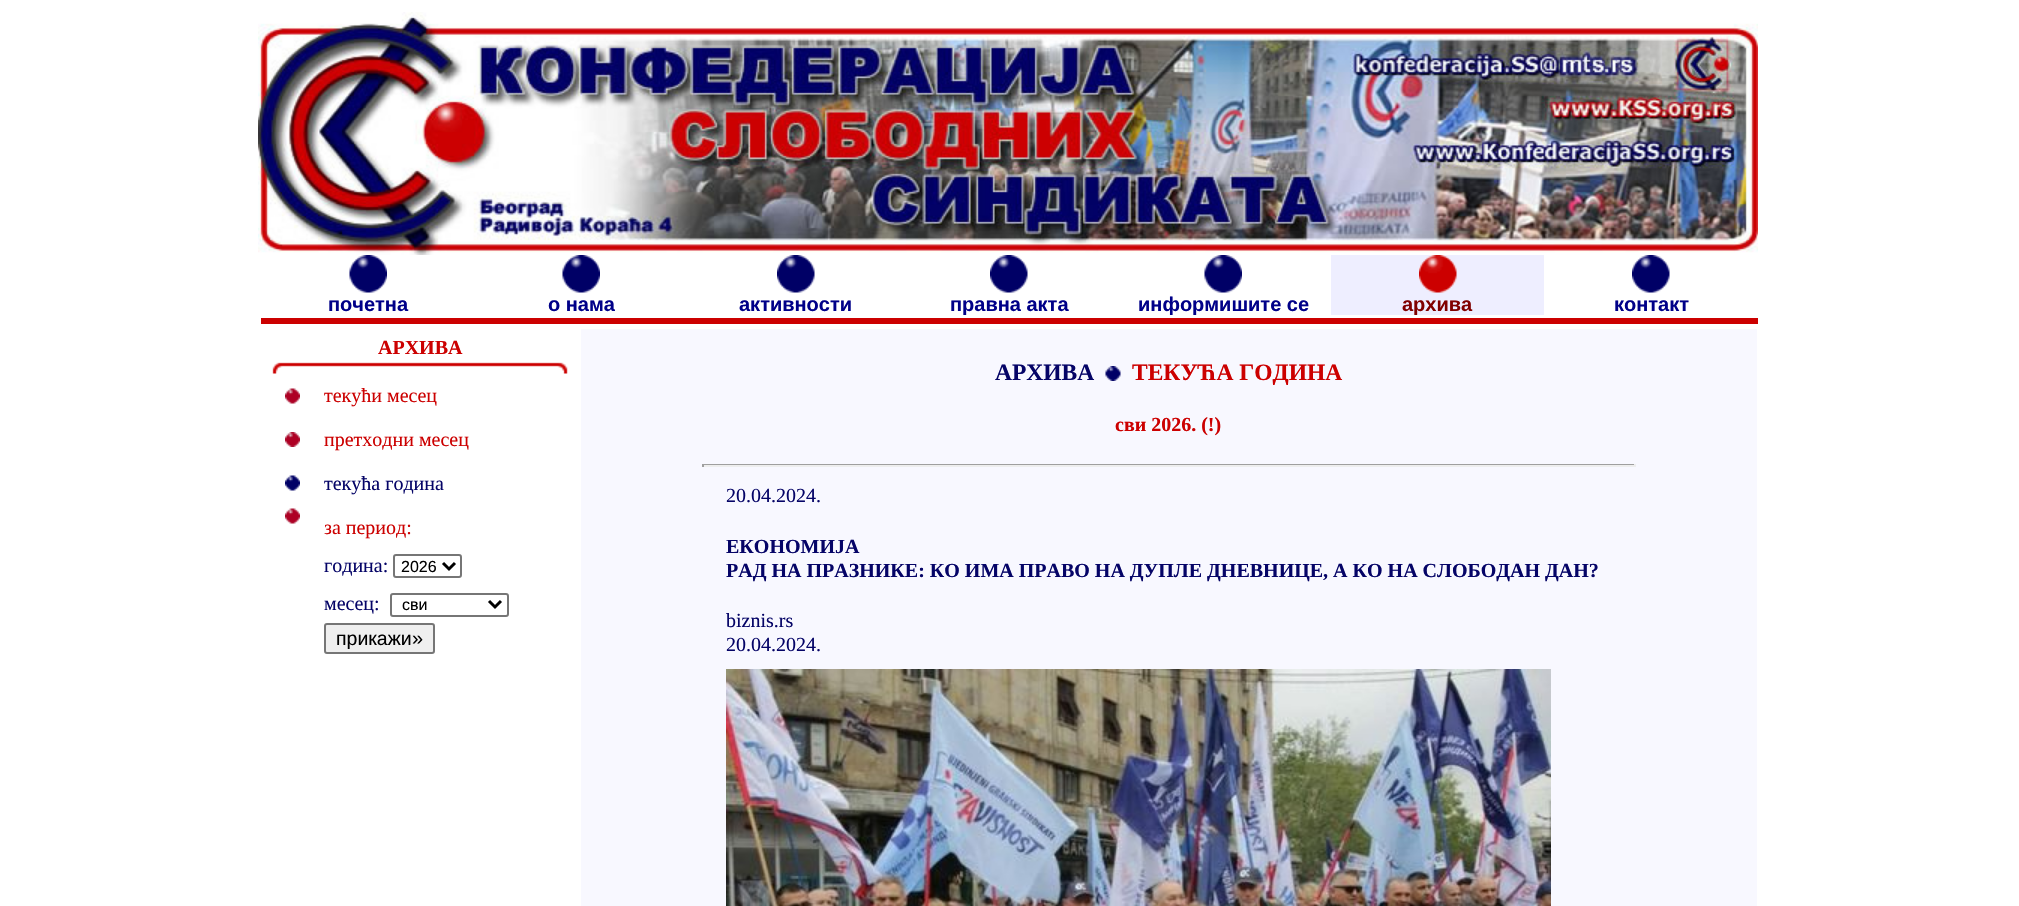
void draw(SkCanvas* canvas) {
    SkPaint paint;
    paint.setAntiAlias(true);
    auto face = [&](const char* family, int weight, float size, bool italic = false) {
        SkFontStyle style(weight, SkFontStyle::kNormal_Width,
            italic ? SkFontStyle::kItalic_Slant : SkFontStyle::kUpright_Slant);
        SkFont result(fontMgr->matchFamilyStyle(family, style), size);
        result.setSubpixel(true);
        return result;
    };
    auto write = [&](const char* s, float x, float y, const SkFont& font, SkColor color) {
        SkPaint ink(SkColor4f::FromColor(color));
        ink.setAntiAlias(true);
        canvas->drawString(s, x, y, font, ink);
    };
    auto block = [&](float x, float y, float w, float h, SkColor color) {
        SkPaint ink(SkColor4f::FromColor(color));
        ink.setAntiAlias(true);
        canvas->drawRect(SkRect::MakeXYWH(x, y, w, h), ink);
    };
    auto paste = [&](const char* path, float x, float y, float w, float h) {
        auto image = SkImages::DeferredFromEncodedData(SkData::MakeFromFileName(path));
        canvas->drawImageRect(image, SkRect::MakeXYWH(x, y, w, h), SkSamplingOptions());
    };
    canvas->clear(SK_ColorWHITE);
    paste("pic1.png", 258, 12, 1500, 243);
    paste("pic2.png", 349, 255, 38, 38);
    auto kFont1 = face("Liberation Sans", 700, 20);
    write("почетна", 328, 311, kFont1, SkColorSetRGB(0, 0, 136));
    paste("pic3.png", 562, 255, 38, 38);
    write("о нама", 548, 311, kFont1, SkColorSetRGB(0, 0, 136));
    paste("pic4.png", 777, 255, 38, 38);
    write("активности", 739, 311, kFont1, SkColorSetRGB(0, 0, 136));
    paste("pic4.png", 990, 255, 38, 38);
    write("правна акта", 950, 311, kFont1, SkColorSetRGB(0, 0, 136));
    paste("pic3.png", 1204, 255, 38, 38);
    write("информишите се", 1138, 311, kFont1, SkColorSetRGB(0, 0, 136));
    block(1331, 255, 213, 60, SkColorSetRGB(238, 238, 255));
    paste("pic5.png", 1419, 255, 38, 38);
    write("архива", 1402, 311, kFont1, SkColorSetRGB(128, 0, 0));
    paste("pic4.png", 1632, 255, 38, 38);
    write("контакт", 1614, 311, kFont1, SkColorSetRGB(0, 0, 136));
    block(963, 315, 455, 1, SK_ColorWHITE);
    block(261, 318, 1497, 6, SkColorSetRGB(204, 0, 0));
    paste("pic6.png", 272, 362, 296, 12);
    auto kFont2 = face("Liberation Serif", 700, 20);
    write("АРХИВА", 378, 354, kFont2, SkColorSetRGB(204, 0, 0));
    paste("pic7.png", 285, 388, 15, 16);
    auto kFont3 = face("Liberation Serif", 400, 20);
    write("текући месец", 324, 402, kFont3, SkColorSetRGB(204, 0, 0));
    paste("pic8.png", 285, 432, 15, 15);
    write("претходни месец", 324, 446, kFont3, SkColorSetRGB(204, 0, 0));
    paste("pic9.png", 285, 475, 15, 16);
    write("текућа година", 324, 490, kFont3, SkColorSetRGB(5, 4, 103));
    paste("pic7.png", 285, 508, 15, 16);
    write("за период:", 324, 534, kFont3, SkColorSetRGB(204, 0, 0));
    write("година:", 324, 572, kFont3, SkColorSetRGB(5, 4, 103));
    paint.setStyle(SkPaint::kStroke_Style);
    paint.setStrokeWidth(2);
    paint.setColor(SkColorSetRGB(118, 118, 118));
    canvas->drawRoundRect(SkRect::MakeXYWH(394, 555, 67, 22), 2, 2, paint);
    paint.setStrokeWidth(3);
    paint.setColor(SK_ColorBLACK);
    canvas->drawPath(SkPathBuilder().moveTo(443, 563).lineTo(449, 569).lineTo(455, 563).detach(), paint);
    auto kFont4 = face("Liberation Sans", 400, 16);
    write("2026", 401, 572, kFont4, SK_ColorBLACK);
    write("месец:", 324, 610, kFont3, SkColorSetRGB(5, 4, 103));
    paint.setStrokeWidth(2);
    paint.setColor(SkColorSetRGB(118, 118, 118));
    canvas->drawRoundRect(SkRect::MakeXYWH(391, 594, 117, 22), 2, 2, paint);
    paint.setStrokeWidth(3);
    paint.setColor(SK_ColorBLACK);
    canvas->drawPath(SkPathBuilder().moveTo(489, 601).lineTo(495, 607).lineTo(501, 601).detach(), paint);
    write("сви", 402, 610, kFont4, SK_ColorBLACK);
    paint.setStyle(SkPaint::kFill_Style);
    paint.setColor(SkColorSetRGB(239, 239, 239));
    canvas->drawRoundRect(SkRect::MakeXYWH(325, 624, 109, 29), 2, 2, paint);
    paint.setStyle(SkPaint::kStroke_Style);
    paint.setStrokeWidth(2);
    paint.setColor(SkColorSetRGB(118, 118, 118));
    canvas->drawRoundRect(SkRect::MakeXYWH(325, 624, 109, 29), 2, 2, paint);
    auto kFont5 = face("Liberation Sans", 400, 19.5f);
    write("прикажи", 336, 645, kFont5, SK_ColorBLACK);
    auto kFont6 = face("Liberation Sans", 400, 20);
    write("»", 412, 645, kFont6, SK_ColorBLACK);
    block(581, 329, 1176, 577, SkColorSetRGB(248, 248, 255));
    auto kFont7 = face("Liberation Serif", 700, 23.5f);
    write("АРХИВА", 995, 380, kFont7, SkColorSetRGB(5, 4, 103));
    paste("pic10.png", 1105, 366, 16, 15);
    write("ТЕКУЋА ГОДИНА", 1132, 380, kFont7, SkColorSetRGB(204, 0, 0));
    write("сви 2026. (!)", 1115, 431, kFont2, SkColorSetRGB(204, 0, 0));
    block(702, 464, 933, 1, SkColorSetRGB(159, 159, 159));
    block(1634, 464, 2, 3, SkColorSetRGB(238, 238, 238));
    block(702, 465, 933, 2, SkColorSetRGB(238, 238, 238));
    block(702, 464, 2, 3, SkColorSetRGB(159, 159, 159));
    write("20.04.2024.", 726, 502, kFont3, SkColorSetRGB(5, 4, 103));
    write("ЕКОНОМИЈА", 726, 553, kFont2, SkColorSetRGB(5, 4, 103));
    write("РАД НА ПРАЗНИКЕ: КО ИМА ПРАВО НА ДУПЛЕ ДНЕВНИЦЕ, А КО НА СЛОБОДАН ДАН?", 726, 577, kFont2, SkColorSetRGB(5, 4, 103));
    write("biznis.rs", 726, 627, kFont3, SkColorSetRGB(5, 4, 103));
    write("20.04.2024.", 726, 651, kFont3, SkColorSetRGB(5, 4, 103));
    paste("pic11.png", 726, 669, 825, 237);
}
